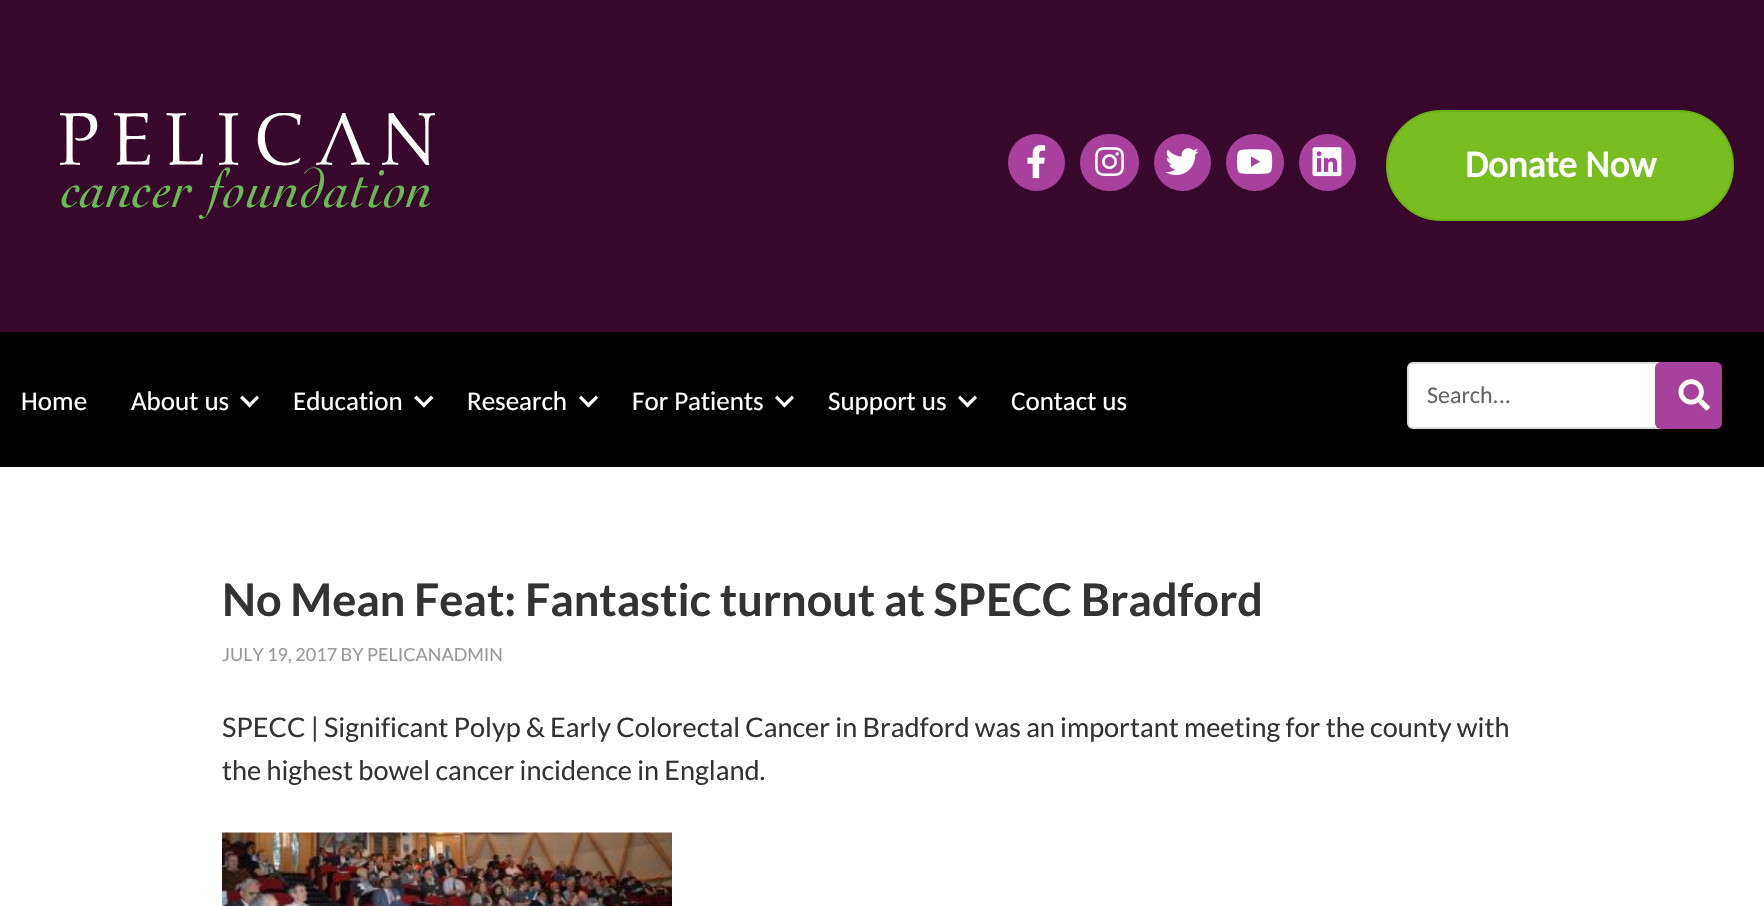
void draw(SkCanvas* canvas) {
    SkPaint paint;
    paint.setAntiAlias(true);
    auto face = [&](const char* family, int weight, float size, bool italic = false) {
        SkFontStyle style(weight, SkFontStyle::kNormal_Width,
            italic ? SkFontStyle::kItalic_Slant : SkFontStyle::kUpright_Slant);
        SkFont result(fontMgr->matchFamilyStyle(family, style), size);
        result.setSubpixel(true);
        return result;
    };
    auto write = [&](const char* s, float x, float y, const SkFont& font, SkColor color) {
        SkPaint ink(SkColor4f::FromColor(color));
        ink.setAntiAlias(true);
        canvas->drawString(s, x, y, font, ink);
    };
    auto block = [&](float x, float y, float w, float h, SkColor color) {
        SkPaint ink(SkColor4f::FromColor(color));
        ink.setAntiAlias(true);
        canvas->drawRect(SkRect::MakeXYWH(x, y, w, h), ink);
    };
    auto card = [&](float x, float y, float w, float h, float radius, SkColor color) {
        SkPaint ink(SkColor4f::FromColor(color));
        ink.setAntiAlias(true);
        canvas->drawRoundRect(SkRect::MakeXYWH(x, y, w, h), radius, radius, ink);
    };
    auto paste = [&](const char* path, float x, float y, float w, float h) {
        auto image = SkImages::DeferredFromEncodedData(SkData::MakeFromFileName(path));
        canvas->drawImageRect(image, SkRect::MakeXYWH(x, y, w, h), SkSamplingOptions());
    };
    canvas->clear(SK_ColorWHITE);
    block(0, 0, 1764, 332, SkColorSetRGB(56, 8, 44));
    paste("pic1.png", 60, 113, 375, 106);
    paint.setColor(SkColorSetRGB(168, 65, 157));
    canvas->drawCircle(1036.5f, 162.5f, 28.5f, paint);
    paste("pic2.png", 1027, 145, 19, 34);
    card(1080, 134, 59, 57, 28.5f, SkColorSetRGB(168, 65, 157));
    paste("pic3.png", 1095, 147, 29, 30);
    canvas->drawCircle(1182.5f, 162.5f, 28.5f, paint);
    paste("pic4.png", 1165, 148, 34, 27);
    card(1226, 134, 58, 57, 28.5f, SkColorSetRGB(168, 65, 157));
    paste("pic5.png", 1236, 149, 37, 25);
    canvas->drawCircle(1327.5f, 162.5f, 28.5f, paint);
    paste("pic6.png", 1312, 147, 30, 30);
    paint.setColor(SkColorSetRGB(120, 190, 32));
    canvas->drawRoundRect(SkRect::MakeXYWH(1387, 111, 346, 109), 54.5f, 54.5f, paint);
    paint.setStyle(SkPaint::kStroke_Style);
    paint.setStrokeWidth(2);
    paint.setColor(SkColorSetRGB(108, 178, 20));
    canvas->drawRoundRect(SkRect::MakeXYWH(1387, 111, 346, 109), 54.5f, 54.5f, paint);
    auto kFont1 = face("Carlito", 700, 37.5f);
    write("Donate Now", 1465, 177, kFont1, SK_ColorWHITE);
    block(0, 332, 1764, 135, SK_ColorBLACK);
    auto kFont2 = face("Carlito", 400, 27);
    write("Home", 21, 410, kFont2, SK_ColorWHITE);
    write("About us", 131, 410, kFont2, SK_ColorWHITE);
    paint.setStyle(SkPaint::kFill_Style);
    paint.setColor(SK_ColorWHITE);
    canvas->drawPath(SkPathBuilder().moveTo(257, 395.5f).lineTo(259, 398).lineTo(249.5f, 407.5f).lineTo(247.5f, 405).close().detach(), paint);
    canvas->drawPath(SkPathBuilder().moveTo(242.5f, 395.5f).lineTo(252, 405).lineTo(249.5f, 407.5f).lineTo(240, 398).close().detach(), paint);
    write("Education", 293, 410, kFont2, SK_ColorWHITE);
    canvas->drawPath(SkPathBuilder().moveTo(431, 395.5f).lineTo(433.5f, 398).lineTo(424, 407.5f).lineTo(421.5f, 405).close().detach(), paint);
    canvas->drawPath(SkPathBuilder().moveTo(416.5f, 395.5f).lineTo(426, 405).lineTo(424, 407.5f).lineTo(414, 398).close().detach(), paint);
    write("Research", 467, 410, kFont2, SK_ColorWHITE);
    canvas->drawPath(SkPathBuilder().moveTo(596, 395.5f).lineTo(598, 398).lineTo(588.5f, 407.5f).lineTo(586, 405).close().detach(), paint);
    canvas->drawPath(SkPathBuilder().moveTo(581, 395.5f).lineTo(590.5f, 405).lineTo(588.5f, 407.5f).lineTo(579, 398).close().detach(), paint);
    write("For Patients", 632, 410, kFont2, SK_ColorWHITE);
    canvas->drawPath(SkPathBuilder().moveTo(792, 395.5f).lineTo(794, 398).lineTo(784.5f, 407.5f).lineTo(782, 405).close().detach(), paint);
    canvas->drawPath(SkPathBuilder().moveTo(777, 395.5f).lineTo(786.5f, 405).lineTo(784.5f, 407.5f).lineTo(775, 398).close().detach(), paint);
    write("Support us", 828, 410, kFont2, SK_ColorWHITE);
    canvas->drawPath(SkPathBuilder().moveTo(975, 395.5f).lineTo(977, 398).lineTo(967.5f, 407.5f).lineTo(965, 405).close().detach(), paint);
    canvas->drawPath(SkPathBuilder().moveTo(960, 395.5f).lineTo(969.5f, 405).lineTo(967.5f, 407.5f).lineTo(958, 398).close().detach(), paint);
    write("Contact us", 1011, 410, kFont2, SK_ColorWHITE);
    canvas->drawRoundRect(SkRect::MakeXYWH(1408, 363, 310, 65), 5, 5, paint);
    paint.setStyle(SkPaint::kStroke_Style);
    paint.setColor(SkColorSetRGB(221, 221, 221));
    canvas->drawRoundRect(SkRect::MakeXYWH(1408, 363, 310, 65), 5, 5, paint);
    auto kFont3 = face("Carlito", 400, 24);
    write("Search...", 1427, 403, kFont3, SkColorSetRGB(102, 102, 102));
    card(1655, 362, 67, 67, 6, SkColorSetRGB(168, 65, 157));
    paste("pic7.png", 1678, 379, 32, 32);
    auto kFont4 = face("Lato", 700, 45);
    write("No Mean Feat: Fantastic turnout at SPECC Bradford", 222, 616, kFont4, SkColorSetRGB(51, 51, 51));
    auto kFont5 = face("Lato", 400, 18);
    write("JULY 19, 2017 BY PELICANADMIN", 222, 661, kFont5, SkColorSetRGB(153, 153, 153));
    auto kFont6 = face("Lato", 400, 27);
    write("SPECC | Significant Polyp & Early Colorectal Cancer in Bradford was an important meeting for the county with", 222, 737, kFont6, SkColorSetRGB(51, 51, 51));
    write("the highest bowel cancer incidence in England.", 222, 780, kFont6, SkColorSetRGB(51, 51, 51));
    paste("pic8.png", 222, 832, 450, 74);
}
